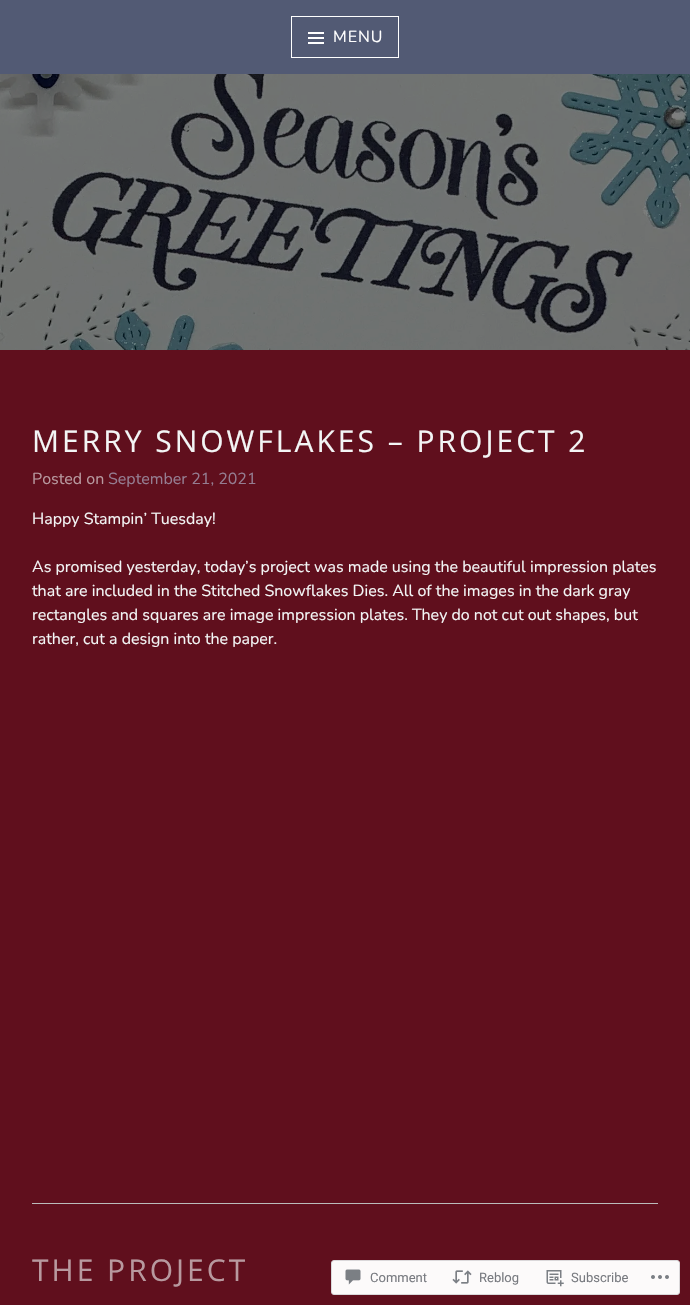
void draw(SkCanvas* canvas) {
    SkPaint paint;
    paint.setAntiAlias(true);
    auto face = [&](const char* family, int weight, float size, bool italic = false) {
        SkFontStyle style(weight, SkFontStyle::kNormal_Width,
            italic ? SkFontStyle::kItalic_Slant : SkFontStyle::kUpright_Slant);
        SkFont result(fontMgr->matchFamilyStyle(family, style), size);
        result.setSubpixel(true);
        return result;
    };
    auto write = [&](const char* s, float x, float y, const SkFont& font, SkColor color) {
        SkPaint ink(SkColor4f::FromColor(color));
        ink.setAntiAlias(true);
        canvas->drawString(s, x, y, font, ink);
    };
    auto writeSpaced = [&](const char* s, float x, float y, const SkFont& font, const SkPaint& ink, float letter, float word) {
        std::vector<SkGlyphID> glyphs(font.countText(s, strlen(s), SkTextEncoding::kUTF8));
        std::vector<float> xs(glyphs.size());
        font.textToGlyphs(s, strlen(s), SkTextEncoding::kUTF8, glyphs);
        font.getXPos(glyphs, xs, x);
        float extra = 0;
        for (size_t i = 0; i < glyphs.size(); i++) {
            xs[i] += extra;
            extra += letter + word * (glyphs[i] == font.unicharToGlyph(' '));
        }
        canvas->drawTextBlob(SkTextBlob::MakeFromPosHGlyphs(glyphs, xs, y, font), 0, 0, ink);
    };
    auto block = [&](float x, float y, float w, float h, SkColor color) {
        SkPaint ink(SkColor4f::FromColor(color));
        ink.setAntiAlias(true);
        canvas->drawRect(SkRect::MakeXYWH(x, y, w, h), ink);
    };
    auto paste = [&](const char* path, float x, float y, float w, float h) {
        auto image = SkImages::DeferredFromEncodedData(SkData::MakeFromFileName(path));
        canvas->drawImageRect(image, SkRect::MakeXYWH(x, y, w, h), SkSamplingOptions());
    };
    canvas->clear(SkColorSetRGB(96, 15, 29));
    block(0, 0, 690, 74, SkColorSetRGB(82, 90, 116));
    paint.setStyle(SkPaint::kStroke_Style);
    paint.setStrokeWidth(1);
    paint.setColor(SK_ColorWHITE);
    canvas->drawRect(SkRect::MakeXYWH(291.5f, 16.5f, 107, 41), paint);
    paste("pic1.png", 308, 32, 16, 12);
    auto kFont1 = face("Nunito", 400, 16);
    paint.setStyle(SkPaint::kFill_Style);
    writeSpaced("MENU", 333, 42, kFont1, paint, 1, 0);
    paste("pic2.png", 0, 74, 690, 276);
    auto kFont2 = face("Open Sans", 400, 30);
    paint.setColor(SkColorSetRGB(243, 245, 245));
    writeSpaced("MERRY SNOWFLAKES – PROJECT 2", 32, 452, kFont2, paint, 3, 0);
    write("Posted on", 32, 484, kFont1, SkColorSetRGB(184, 153, 159));
    write("September 21, 2021", 108, 484, kFont1, SkColorSetRGB(149, 125, 145));
    write("Happy Stampin’ Tuesday!", 32, 524, kFont1, SkColorSetRGB(243, 245, 245));
    write("As promised yesterday, today’s project was made using the beautiful impression plates", 32, 572, kFont1, SkColorSetRGB(243, 245, 245));
    write("that are included in the Stitched Snowflakes Dies. All of the images in the dark gray", 32, 596, kFont1, SkColorSetRGB(243, 245, 245));
    write("rectangles and squares are image impression plates. They do not cut out shapes, but", 32, 620, kFont1, SkColorSetRGB(243, 245, 245));
    write("rather, cut a design into the paper.", 32, 644, kFont1, SkColorSetRGB(243, 245, 245));
    block(32, 1203, 626, 1, SkColorSetRGB(187, 187, 187));
    paint.setColor(SkColorSetRGB(184, 153, 159));
    writeSpaced("THE PROJECT", 32, 1281, kFont2, paint, 3, 0);
    paint.setColor(SkColorSetRGB(252, 250, 250));
    canvas->drawRoundRect(SkRect::MakeXYWH(331.5f, 1260.5f, 348, 34), 2.5f, 2.5f, paint);
    paint.setStyle(SkPaint::kStroke_Style);
    paint.setColor(SkColorSetRGB(218, 216, 218));
    canvas->drawRoundRect(SkRect::MakeXYWH(331.5f, 1260.5f, 348, 34), 2.5f, 2.5f, paint);
    paste("pic3.png", 345, 1269, 16, 16);
    auto kFont3 = face("Roboto", 400, 13);
    write("Comment", 370, 1282, kFont3, SkColorSetRGB(120, 122, 128));
    paste("pic4.png", 452, 1270, 20, 14);
    write("Reblog", 479, 1282, kFont3, SkColorSetRGB(120, 122, 128));
    paste("pic5.png", 546, 1270, 18, 17);
    write("Subscribe", 571, 1282, kFont3, SkColorSetRGB(120, 122, 128));
    paste("pic6.png", 651, 1275, 18, 4);
}
